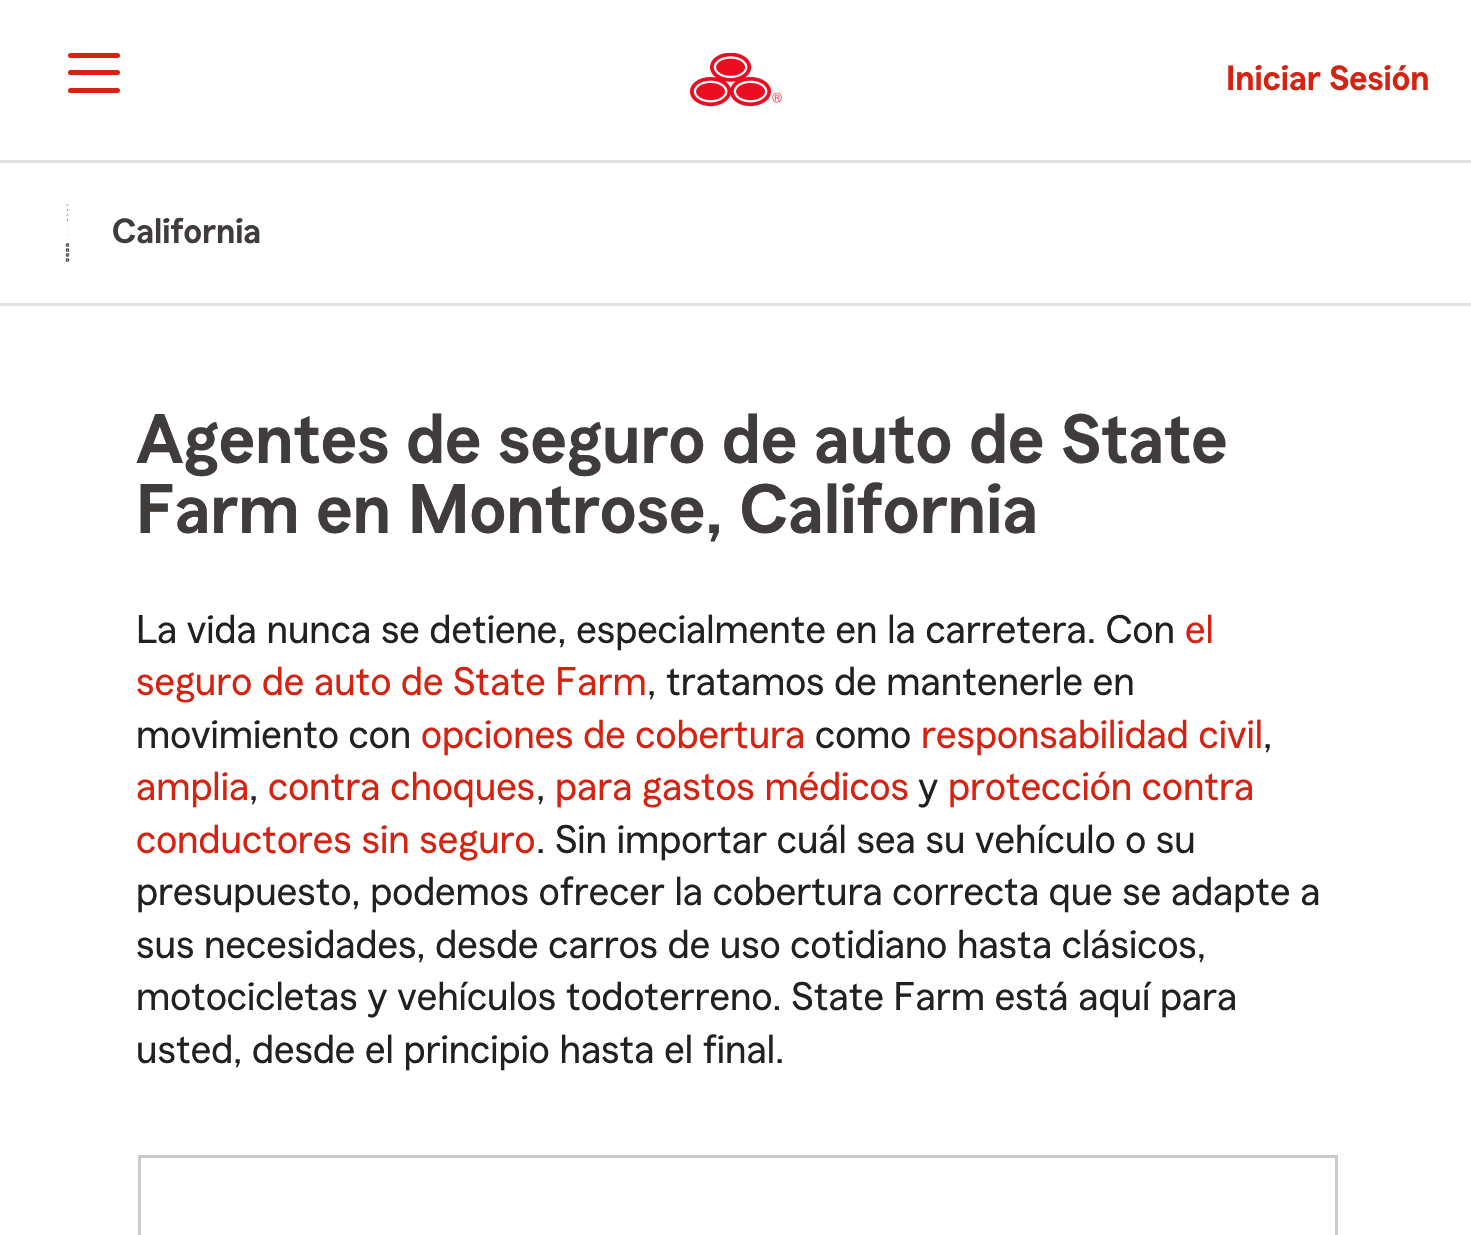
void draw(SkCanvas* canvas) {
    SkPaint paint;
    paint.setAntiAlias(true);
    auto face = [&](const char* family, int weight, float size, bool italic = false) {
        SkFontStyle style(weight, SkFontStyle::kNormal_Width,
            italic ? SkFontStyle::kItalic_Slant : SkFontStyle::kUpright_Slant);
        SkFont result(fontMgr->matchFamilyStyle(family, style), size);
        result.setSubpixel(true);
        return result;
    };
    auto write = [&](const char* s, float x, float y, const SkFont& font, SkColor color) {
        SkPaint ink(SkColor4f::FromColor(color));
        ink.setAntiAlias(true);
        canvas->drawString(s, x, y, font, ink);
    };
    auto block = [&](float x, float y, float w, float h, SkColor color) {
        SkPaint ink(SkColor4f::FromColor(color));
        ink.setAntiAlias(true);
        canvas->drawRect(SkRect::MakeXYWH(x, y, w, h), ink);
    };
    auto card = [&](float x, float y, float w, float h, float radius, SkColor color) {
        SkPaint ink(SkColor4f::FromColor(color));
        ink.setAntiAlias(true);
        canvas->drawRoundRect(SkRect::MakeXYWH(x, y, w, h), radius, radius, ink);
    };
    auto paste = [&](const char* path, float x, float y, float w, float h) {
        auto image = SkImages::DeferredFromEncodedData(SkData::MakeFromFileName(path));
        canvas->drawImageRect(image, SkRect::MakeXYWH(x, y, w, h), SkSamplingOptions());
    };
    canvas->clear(SK_ColorWHITE);
    block(0, 160, 1471, 3, SkColorSetRGB(228, 227, 227));
    card(68, 53, 52, 5, 2.5f, SkColorSetRGB(214, 35, 17));
    card(68, 70, 52, 5, 2.5f, SkColorSetRGB(214, 35, 17));
    card(68, 88, 52, 5, 2.5f, SkColorSetRGB(214, 35, 17));
    paste("pic1.png", 690, 53, 92, 54);
    auto kFont1 = face("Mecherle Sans", 600, 35);
    write("Iniciar Sesión", 1226, 90, kFont1, SkColorSetRGB(214, 35, 17));
    block(0, 303, 1471, 3, SkColorSetRGB(228, 227, 227));
    paste("pic2.png", 65, 204, 5, 58);
    write("California", 112, 243, kFont1, SkColorSetRGB(64, 60, 60));
    auto kFont2 = face("Mecherle Sans", 600, 70);
    write("Agentes de seguro de auto de State", 136, 463, kFont2, SkColorSetRGB(64, 60, 60));
    write("Farm en Montrose, California", 136, 533, kFont2, SkColorSetRGB(64, 60, 60));
    auto kFont3 = face("Mecherle Sans", 400, 40);
    write("La vida nunca se detiene, especialmente en la carretera. Con", 136, 643, kFont3, SkColorSetRGB(33, 33, 33));
    write("el", 1185, 643, kFont3, SkColorSetRGB(214, 35, 17));
    write("seguro de auto de State Farm", 136, 695, kFont3, SkColorSetRGB(214, 35, 17));
    write(", tratamos de mantenerle en", 647, 695, kFont3, SkColorSetRGB(33, 33, 33));
    write("movimiento con", 136, 748, kFont3, SkColorSetRGB(33, 33, 33));
    write("opciones de cobertura", 421, 748, kFont3, SkColorSetRGB(214, 35, 17));
    write("como", 815, 748, kFont3, SkColorSetRGB(33, 33, 33));
    write("responsabilidad civil", 921, 748, kFont3, SkColorSetRGB(214, 35, 17));
    write(",", 1263, 748, kFont3, SkColorSetRGB(33, 33, 33));
    write("amplia", 136, 800, kFont3, SkColorSetRGB(214, 35, 17));
    write(",", 249, 800, kFont3, SkColorSetRGB(33, 33, 33));
    write("contra choques", 268, 800, kFont3, SkColorSetRGB(214, 35, 17));
    write(",", 536, 800, kFont3, SkColorSetRGB(33, 33, 33));
    write("para gastos médicos", 555, 800, kFont3, SkColorSetRGB(214, 35, 17));
    write("y", 918, 800, kFont3, SkColorSetRGB(33, 33, 33));
    write("protección contra", 948, 800, kFont3, SkColorSetRGB(214, 35, 17));
    write("conductores sin seguro", 136, 853, kFont3, SkColorSetRGB(214, 35, 17));
    write(". Sin importar cuál sea su vehículo o su", 536, 853, kFont3, SkColorSetRGB(33, 33, 33));
    write("presupuesto, podemos ofrecer la cobertura correcta que se adapte a", 136, 905, kFont3, SkColorSetRGB(33, 33, 33));
    write("sus necesidades, desde carros de uso cotidiano hasta clásicos,", 136, 958, kFont3, SkColorSetRGB(33, 33, 33));
    write("motocicletas y vehículos todoterreno. State Farm está aquí para", 136, 1010, kFont3, SkColorSetRGB(33, 33, 33));
    write("usted, desde el principio hasta el final.", 136, 1063, kFont3, SkColorSetRGB(33, 33, 33));
    paint.setStyle(SkPaint::kStroke_Style);
    paint.setStrokeWidth(3);
    paint.setColor(SkColorSetRGB(203, 203, 203));
    canvas->drawRect(SkRect::MakeXYWH(139.5f, 1156.5f, 1197, 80), paint);
}
